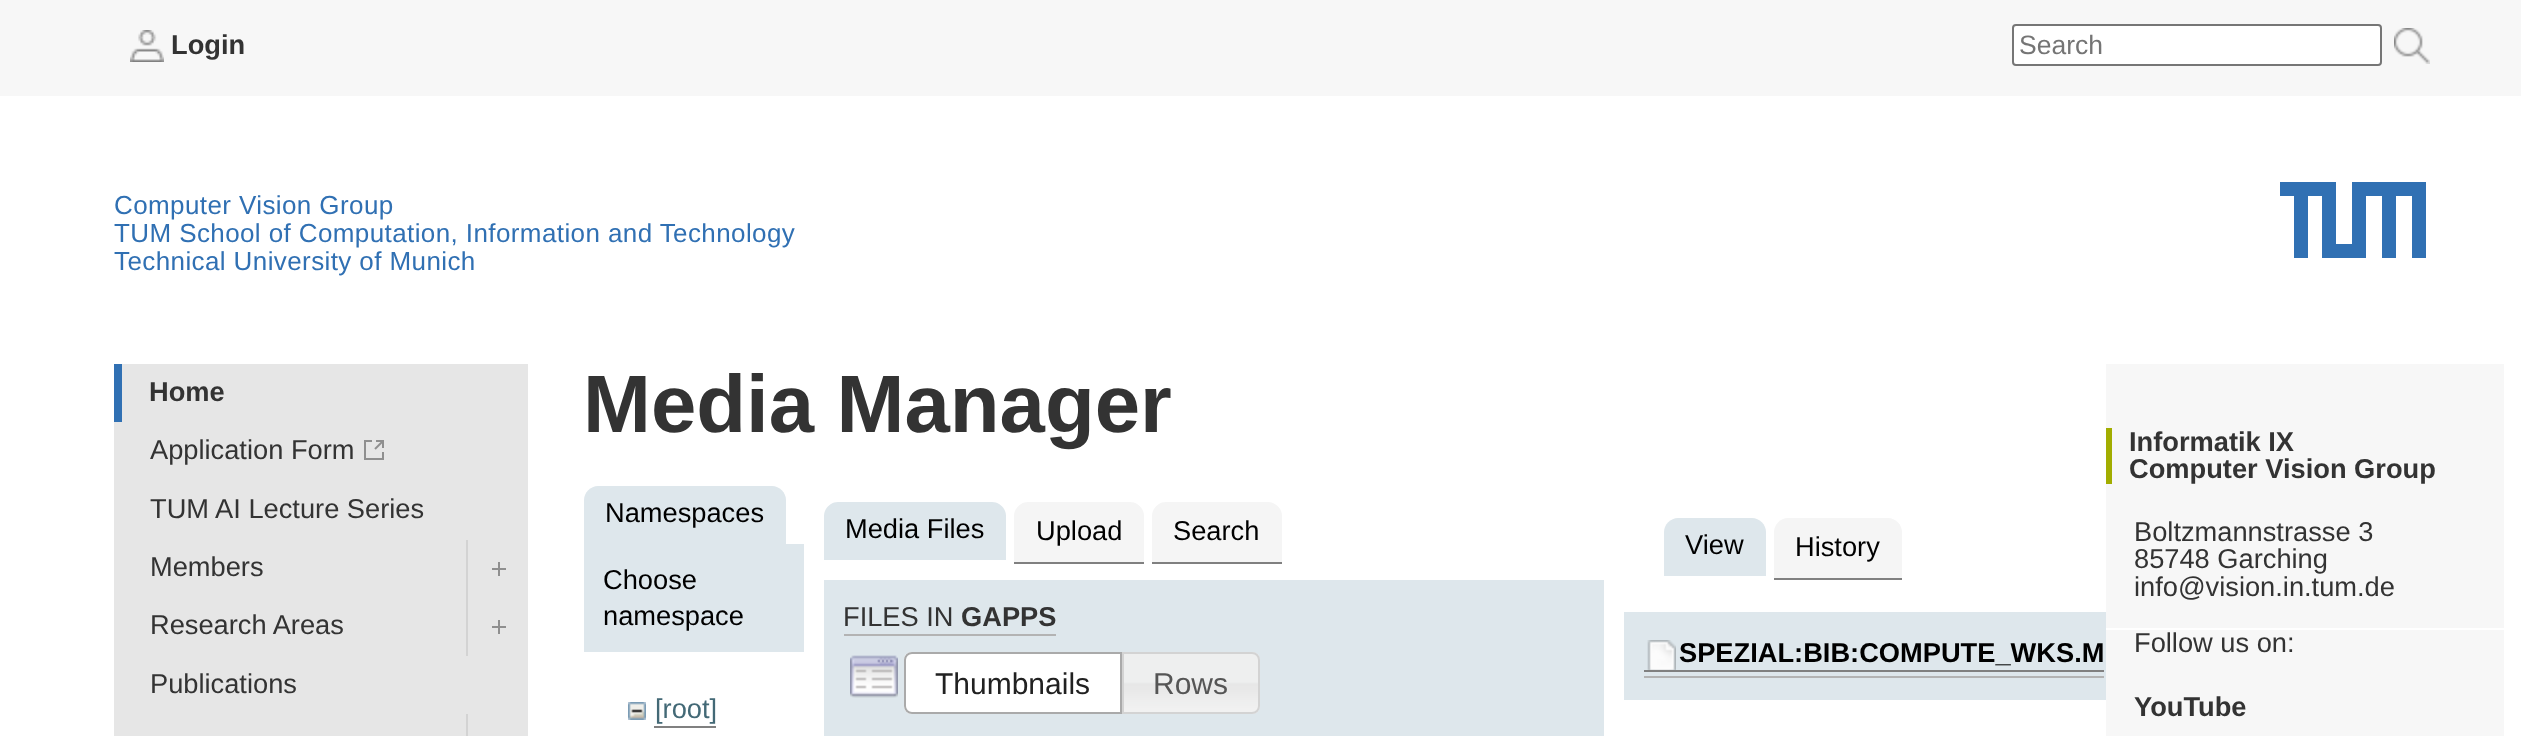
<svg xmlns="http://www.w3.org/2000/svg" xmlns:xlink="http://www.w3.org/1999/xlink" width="2521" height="736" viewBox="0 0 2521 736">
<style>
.cls-1{font:bold 27.25px Liberation Sans;fill:#333333}
.cls-2{font:26.5px Liberation Sans;fill:#757575}
.cls-3{font:26px Liberation Sans;letter-spacing:0.4px;fill:#3070b3}
.cls-4{font:27.25px Liberation Sans;fill:#333333}
.cls-5{font:bold 81.5px Liberation Sans;fill:#333333}
.cls-6{font:27.25px Liberation Sans;fill:#000000}
.cls-7{font:27.25px Liberation Sans;fill:#436976}
.cls-8{font:30px Liberation Sans;fill:#212121}
.cls-9{font:30px Liberation Sans;fill:#555555}
.cls-10{font:bold 27.25px Liberation Sans;fill:#000000}
</style>
<rect width="100%" height="100%" fill="#ffffff"/>
<rect fill="#f7f7f7" x="0" y="0" width="2521" height="96"/>
<image xlink:href="image0.png" x="130" y="30" width="34" height="32"/>
<rect fill="#ffffff" stroke="#767676" stroke-width="2" x="2013" y="25" width="368" height="40" rx="3"/>
<image xlink:href="image1.png" x="2394" y="28" width="36" height="36"/>
<image xlink:href="image2.png" x="2280" y="182" width="146" height="76"/>
<rect fill="#e6e6e6" x="122" y="364" width="406" height="58"/>
<rect fill="#3070b3" x="114" y="364" width="8" height="58"/>
<rect fill="#e6e6e6" x="114" y="422" width="414" height="314"/>
<image xlink:href="image3.png" x="364" y="440" width="20" height="20"/>
<image xlink:href="image4.png" x="492" y="562" width="14" height="14"/>
<rect fill="#d3d3d3" x="466" y="540" width="2" height="116"/>
<image xlink:href="image4.png" x="492" y="620" width="14" height="14"/>
<rect fill="#d3d3d3" x="466" y="714" width="2" height="22"/>
<path fill="#dee7ec" d="M598 486H772C779.5 486 786 492.5 786 500V544H584V500C584 492.5 590.5 486 598 486Z"/>
<rect fill="#dee7ec" x="584" y="544" width="220" height="108"/>
<image xlink:href="image5.png" x="628" y="702" width="18" height="18"/>
<rect fill="#808080" x="654" y="726" width="62" height="2"/>
<path fill="#dee7ec" d="M838 502H992C999.5 502 1006 508.5 1006 516V560H824V516C824 508.5 830.5 502 838 502Z"/>
<path fill="#f5f5f5" d="M1028 502H1130C1137.5 502 1144 508.5 1144 516V564H1014V516C1014 508.5 1020.5 502 1028 502Z"/>
<rect fill="#808080" x="1014" y="562" width="130" height="2"/>
<path fill="#f5f5f5" d="M1166 502H1268C1275.5 502 1282 508.5 1282 516V564H1152V516C1152 508.5 1158.5 502 1166 502Z"/>
<rect fill="#808080" x="1152" y="562" width="130" height="2"/>
<rect fill="#dee7ec" x="824" y="580" width="780" height="156"/>
<rect fill="#b3b3b3" x="844" y="634" width="212" height="2"/>
<image xlink:href="image6.png" x="850" y="655" width="48" height="43"/>
<path fill="#ffffff" d="M912 652H1122V714H912C907.5 714 904 710.5 904 706V660C904 655.5 907.5 652 912 652Z"/>
<image xlink:href="image7.png" x="904" y="652" width="7" height="62"/>
<path fill="none" stroke="#aaaaaa" stroke-width="2" d="M912 653H1121V713H912C908 713 905 710 905 706V660C905 656 908 653 912 653Z"/>
<image xlink:href="image8.png" x="1124" y="652" width="136" height="62"/>
<path fill="none" stroke="#d3d3d3" stroke-width="2" d="M1123 653H1252C1256 653 1259 656 1259 660V706C1259 710 1256 713 1252 713H1123Z"/>
<path fill="#dee7ec" d="M1678 518H1752C1759.5 518 1766 524.5 1766 532V576H1664V532C1664 524.5 1670.5 518 1678 518Z"/>
<path fill="#f5f5f5" d="M1788 518H1888C1895.5 518 1902 524.5 1902 532V580H1774V532C1774 524.5 1780.5 518 1788 518Z"/>
<rect fill="#808080" x="1774" y="578" width="128" height="2"/>
<rect fill="#dee7ec" x="1624" y="612" width="482" height="88"/>
<rect fill="#b3b3b3" x="1644" y="676" width="460" height="2"/>
<image xlink:href="image9.png" x="1647" y="640" width="29" height="30"/>
<rect fill="#808080" x="1644" y="670" width="460" height="2"/>
<rect fill="#f7f7f7" x="2106" y="364" width="398" height="372"/>
<rect fill="#a2ad00" x="2106" y="428" width="6" height="56"/>
<rect fill="#ffffff" x="2106" y="628" width="398" height="2"/>
<text class="cls-1" x="171" y="54">Login</text>
<text class="cls-2" x="2019" y="54">Search</text>
<text class="cls-3"><tspan x="114" y="214">Computer Vision Group</tspan><tspan x="114" y="242">TUM School of Computation, Information and Technology</tspan><tspan x="114" y="270">Technical University of Munich</tspan></text>
<text class="cls-1" x="149" y="401">Home</text>
<text class="cls-4" x="150" y="459">Application Form</text>
<text class="cls-4" x="150" y="518">TUM AI Lecture Series</text>
<text class="cls-4" x="150" y="576">Members</text>
<text class="cls-4" x="150" y="634">Research Areas</text>
<text class="cls-4" x="150" y="693">Publications</text>
<text class="cls-5" x="583" y="432">Media Manager</text>
<text class="cls-6" x="605" y="522">Namespaces</text>
<text class="cls-6"><tspan x="603" y="589">Choose</tspan><tspan x="603" y="625">namespace</tspan></text>
<text class="cls-7" x="655" y="718">[root]</text>
<text class="cls-6" x="845" y="538">Media Files</text>
<text class="cls-6" x="1036" y="540">Upload</text>
<text class="cls-6" x="1173" y="540">Search</text>
<text class="cls-4" x="843" y="626">FILES IN</text>
<text class="cls-1" x="961" y="626">GAPPS</text>
<text class="cls-8" x="935" y="694">Thumbnails</text>
<text class="cls-9" x="1153" y="694">Rows</text>
<text class="cls-6" x="1685" y="554">View</text>
<text class="cls-6" x="1795" y="556">History</text>
<text class="cls-10" x="1679" y="662">SPEZIAL:BIB:COMPUTE_WKS.M</text>
<text class="cls-1"><tspan x="2129" y="451">Informatik IX</tspan><tspan x="2129" y="478">Computer Vision Group</tspan></text>
<text class="cls-4"><tspan x="2134" y="541">Boltzmannstrasse 3</tspan><tspan x="2134" y="568">85748 Garching</tspan><tspan x="2134" y="596">info@vision.in.tum.de</tspan></text>
<text class="cls-4" x="2134" y="652">Follow us on:</text>
<text class="cls-1" x="2134" y="716">YouTube</text>
</svg>
